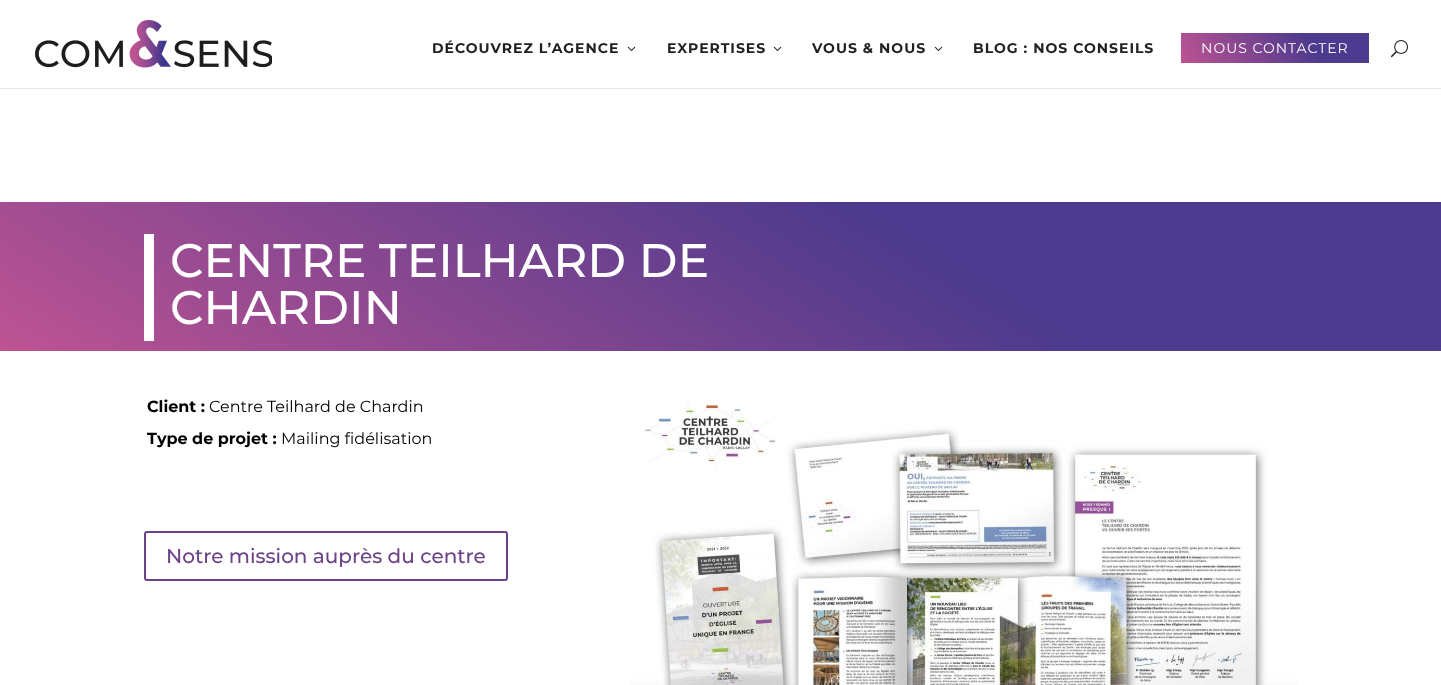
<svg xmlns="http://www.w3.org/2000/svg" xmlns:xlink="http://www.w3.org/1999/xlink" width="1441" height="685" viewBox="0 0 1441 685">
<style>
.cls-1{font:bold 14px Montserrat;letter-spacing:1px;fill:#212121}
.cls-2{font:14px Montserrat;letter-spacing:1px;fill:#ffffff}
.cls-3{font:500 47px Montserrat;fill:#ffffff}
.cls-4{font:bold 16px Montserrat;fill:#000000}
.cls-5{font:16px Montserrat;fill:#000000}
.cls-6{font:500 20px Montserrat;fill:#6c4389}
</style>
<defs>
<linearGradient id="g1" gradientUnits="userSpaceOnUse" x1="1199" y1="93" x2="1351" y2="2.5"><stop offset="0" stop-color="#be5393"/><stop offset="0.7" stop-color="#4b3a8d"/></linearGradient>
<linearGradient id="g2" gradientUnits="userSpaceOnUse" x1="485" y1="654" x2="956" y2="-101"><stop offset="0" stop-color="#be5393"/><stop offset="0.65" stop-color="#4b3a8d"/></linearGradient>
</defs>
<rect width="100%" height="100%" fill="#ffffff"/>
<rect fill="#e6e6e6" x="0" y="88" width="1441" height="1"/>
<image xlink:href="image0.png" x="35" y="20" width="237" height="48"/>
<image xlink:href="image1.png" x="627" y="46" width="9" height="5"/>
<image xlink:href="image1.png" x="773" y="46" width="9" height="5"/>
<image xlink:href="image1.png" x="934" y="46" width="9" height="5"/>
<rect fill="url(#g1)" x="1181" y="33" width="188" height="30"/>
<image xlink:href="image2.png" x="1391" y="40" width="17" height="18"/>
<rect fill="url(#g2)" x="0" y="202" width="1441" height="149"/>
<rect fill="#ffffff" x="144" y="234" width="10" height="107"/>
<rect fill="none" stroke="#6c4389" stroke-width="2" x="145" y="532" width="362" height="48" rx="2"/>
<image xlink:href="image3.png" x="631" y="399" width="666" height="286"/>
<text class="cls-1" x="432" y="53">DÉCOUVREZ L’AGENCE</text>
<text class="cls-1" x="667" y="53">EXPERTISES</text>
<text class="cls-1" x="812" y="53">VOUS &amp; NOUS</text>
<text class="cls-1" x="973" y="53">BLOG : NOS CONSEILS</text>
<text class="cls-2" x="1201" y="53">NOUS CONTACTER</text>
<text class="cls-3"><tspan x="170" y="277">CENTRE TEILHARD DE</tspan><tspan x="170" y="324">CHARDIN</tspan></text>
<text class="cls-4" x="147" y="412">Client :</text>
<text class="cls-5" x="209" y="412">Centre Teilhard de Chardin</text>
<text class="cls-4" x="147" y="444">Type de projet :</text>
<text class="cls-5" x="281" y="444">Mailing fidélisation</text>
<text class="cls-6" x="166" y="563">Notre mission auprès du centre</text>
</svg>
